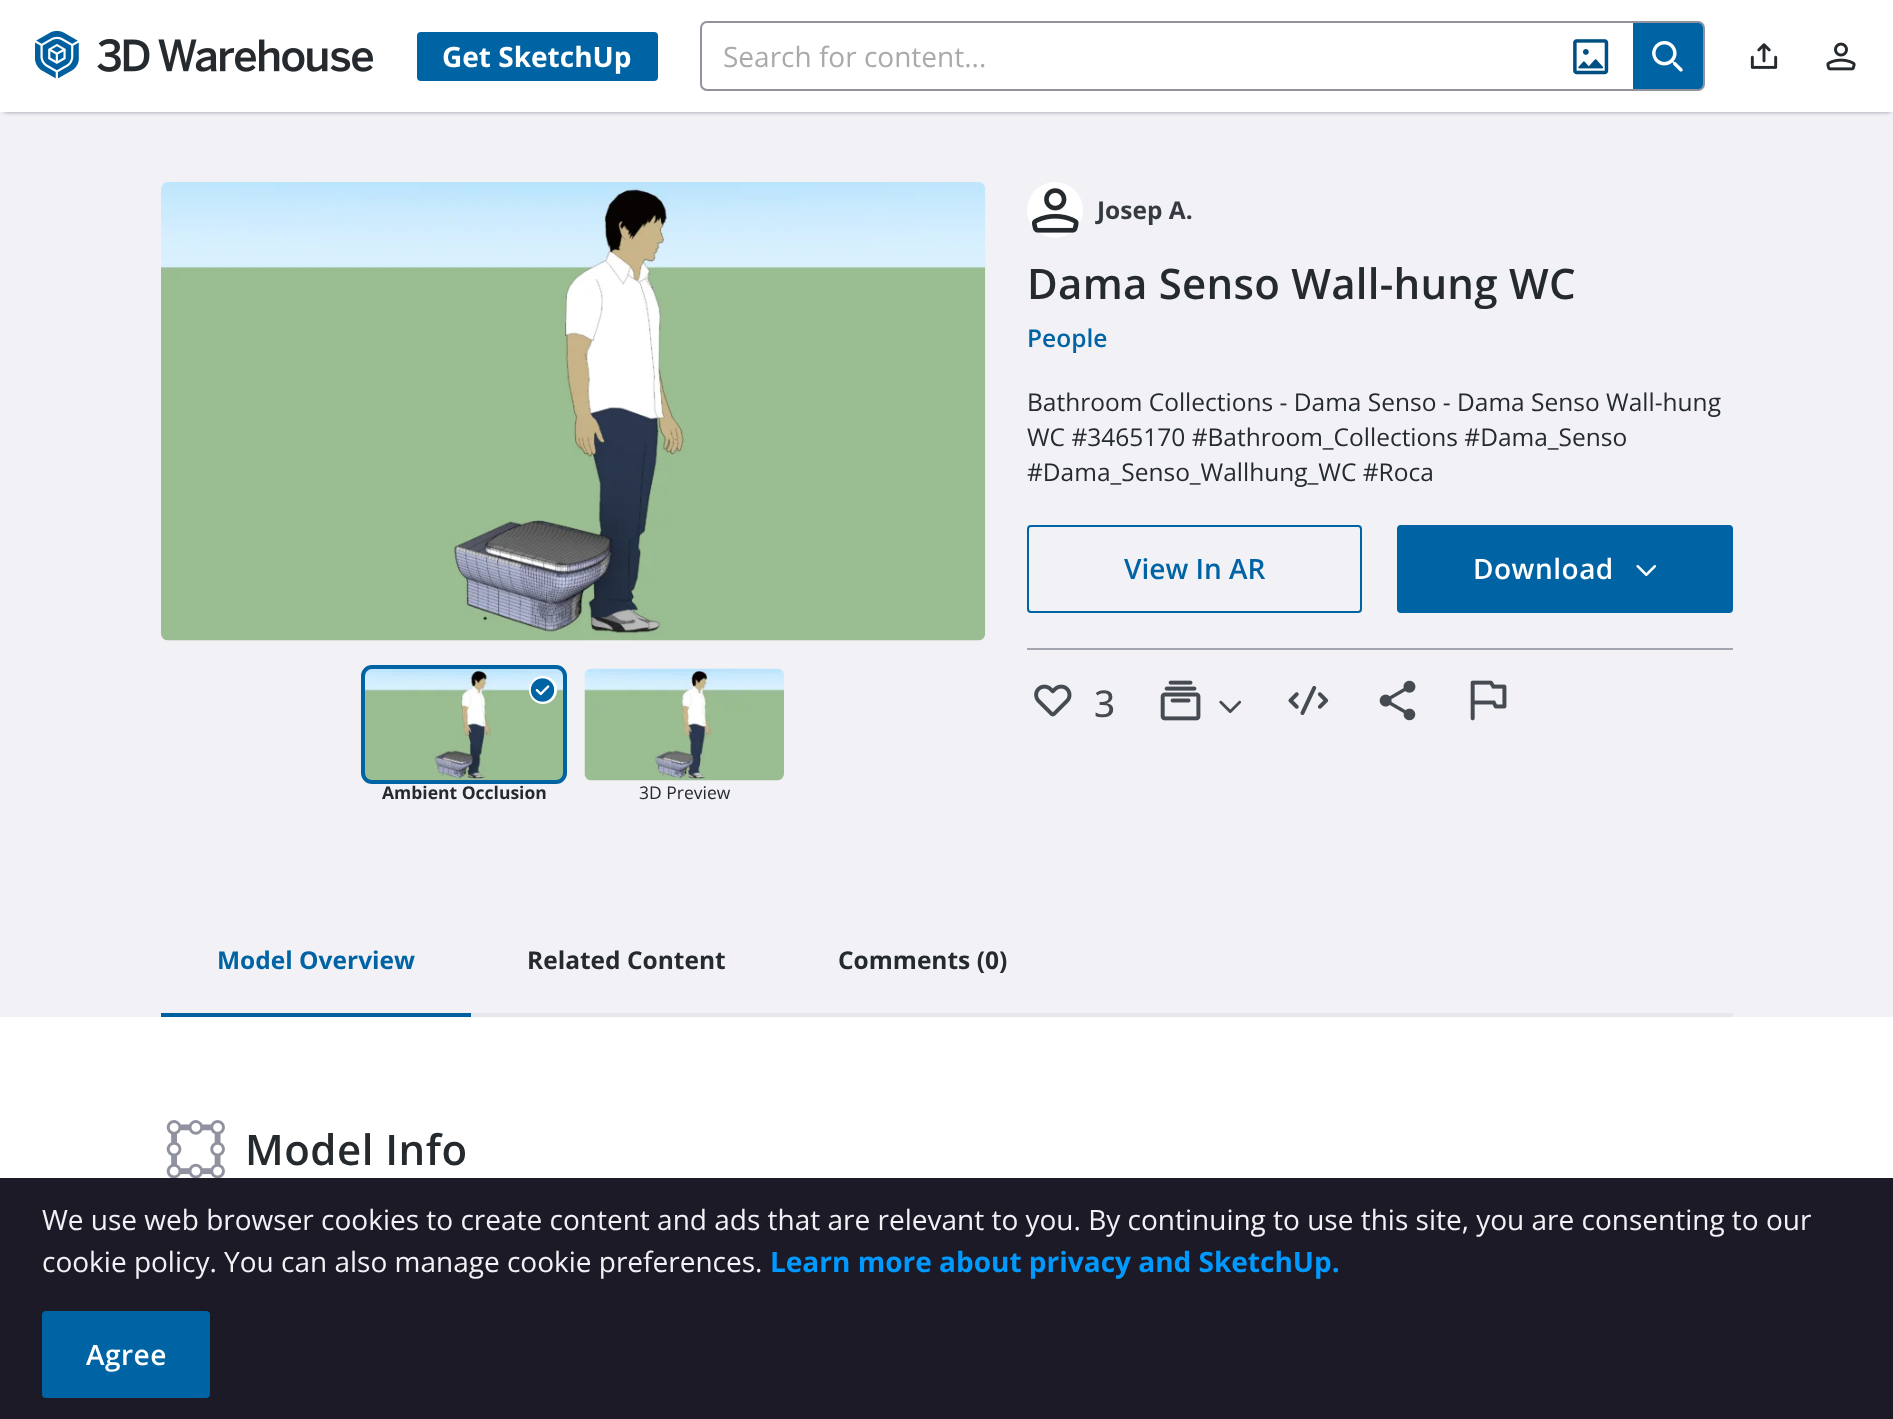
<svg xmlns="http://www.w3.org/2000/svg" xmlns:xlink="http://www.w3.org/1999/xlink" width="1893" height="1419" viewBox="0 0 1893 1419">
<style>
.cls-1{font:bold 28px Open Sans;fill:#ffffff}
.cls-2{font:28px Open Sans;fill:#a8aaab}
.cls-3{font:bold 24.5px Open Sans;fill:#353a40}
.cls-4{font:600 42px Open Sans;letter-spacing:0.25px;fill:#252a2e}
.cls-5{font:600 24.5px Open Sans;fill:#0063a3}
.cls-6{font:24.5px Open Sans;fill:#252a2e}
.cls-7{font:600 28px Open Sans;fill:#0063a3}
.cls-8{font:600 28px Open Sans;letter-spacing:0.5px;fill:#ffffff}
.cls-9{font:500 37px Open Sans;fill:#464b52}
.cls-10{font:bold 17.5px Open Sans;fill:#252a2e}
.cls-11{font:17.5px Open Sans;fill:#252a2e}
.cls-12{font:bold 24.5px Open Sans;fill:#0063a3}
.cls-13{font:bold 24.5px Open Sans;fill:#252a2e}
.cls-14{font:600 42px Open Sans;letter-spacing:0.5px;fill:#252a2e}
.cls-15{font:28px Open Sans;fill:#f1f1f6}
.cls-16{font:bold 28px Open Sans;fill:#0099fe}
</style>
<rect width="100%" height="100%" fill="#f1f1f6"/>
<rect fill="#90939f" filter="blur(2px)" x="4" y="7" width="1886" height="105"/>
<rect fill="#ffffff" x="0" y="0" width="1893" height="112"/>
<image xlink:href="image0.png" x="35" y="30" width="44" height="49"/>
<image xlink:href="image1.png" x="97" y="39" width="276" height="33"/>
<rect fill="#0063a3" x="417" y="32" width="241" height="49" rx="4"/>
<rect fill="none" stroke="#90939f" stroke-width="2" x="701" y="22" width="1003" height="68" rx="6"/>
<image xlink:href="image2.png" x="1573" y="39" width="36" height="36"/>
<path fill="#0063a3" d="M1633 23H1698C1701 23 1703 25 1703 28V84C1703 87 1701 89 1698 89H1633Z"/>
<image xlink:href="image3.png" x="1652" y="41" width="31" height="31"/>
<image xlink:href="image4.png" x="1750" y="43" width="28" height="26"/>
<image xlink:href="image5.png" x="1826" y="42" width="30" height="29"/>
<circle fill="#ffffff" cx="1055" cy="210" r="28"/>
<image xlink:href="image6.png" x="1031" y="188" width="48" height="45"/>
<rect fill="none" stroke="#0063a3" stroke-width="2" x="1028" y="526" width="333" height="86" rx="3"/>
<rect fill="#0063a3" stroke="#0063a3" stroke-width="2" x="1398" y="526" width="334" height="86" rx="3"/>
<image xlink:href="image7.png" x="1636" y="565" width="21" height="12"/>
<rect fill="#a3a6b1" x="1027" y="648" width="706" height="2"/>
<image xlink:href="image8.png" x="1034" y="684" width="38" height="33"/>
<image xlink:href="image9.png" x="1160" y="680" width="41" height="41"/>
<image xlink:href="image10.png" x="1219" y="700" width="23" height="13"/>
<image xlink:href="image11.png" x="1288" y="685" width="41" height="30"/>
<image xlink:href="image12.png" x="1379" y="680" width="37" height="41"/>
<image xlink:href="image13.png" x="1470" y="680" width="37" height="41"/>
<image xlink:href="image14.png" x="161" y="182" width="825" height="459"/>
<image xlink:href="image15.png" x="365" y="669" width="198" height="111"/>
<rect fill="none" stroke="#0063a3" stroke-width="4" x="363" y="667" width="202" height="115" rx="9"/>
<circle fill="#ffffff" cx="543" cy="690" r="14"/>
<image xlink:href="image16.png" x="530" y="678" width="25" height="24"/>
<image xlink:href="image17.png" x="584" y="668" width="200" height="113"/>
<rect fill="#e5e7eb" x="1062" y="1013" width="671" height="4"/>
<rect fill="#005f9e" x="161" y="1013" width="310" height="4"/>
<rect fill="#e5e7eb" x="471" y="1013" width="591" height="4"/>
<rect fill="#ffffff" x="0" y="1017" width="1893" height="161"/>
<image xlink:href="image18.png" x="166" y="1120" width="59" height="58"/>
<rect fill="#1b1a26" x="0" y="1178" width="1893" height="241"/>
<rect fill="#0063a3" stroke="#0063a3" stroke-width="2" x="43" y="1312" width="166" height="85" rx="3"/>
<text class="cls-1" x="442" y="67">Get SketchUp</text>
<text class="cls-2" x="723" y="67">Search for content...</text>
<text class="cls-3" x="1097" y="219">Josep A.</text>
<text class="cls-4" x="1027" y="299">Dama Senso Wall-hung WC</text>
<text class="cls-5" x="1027" y="347">People</text>
<text class="cls-6"><tspan x="1027" y="411">Bathroom Collections - Dama Senso - Dama Senso Wall-hung</tspan><tspan x="1027" y="446">WC #3465170 #Bathroom_Collections #Dama_Senso</tspan><tspan x="1027" y="481">#Dama_Senso_Wallhung_WC #Roca</tspan></text>
<text class="cls-7" x="1124" y="579">View In AR</text>
<text class="cls-8" x="1473" y="579">Download</text>
<text class="cls-9" x="1094" y="717">3</text>
<text class="cls-10" x="382" y="799">Ambient Occlusion</text>
<text class="cls-11" x="639" y="799">3D Preview</text>
<text class="cls-12" x="217" y="969">Model Overview</text>
<text class="cls-13" x="527" y="969">Related Content</text>
<text class="cls-13" x="838" y="969">Comments (0)</text>
<text class="cls-14" x="245" y="1165">Model Info</text>
<text class="cls-15"><tspan x="42" y="1230">We use web browser cookies to create content and ads that are relevant to you. By continuing to use this site, you are consenting to our</tspan><tspan x="42" y="1272">cookie policy. You can also manage cookie preferences.</tspan></text>
<text class="cls-16" x="770" y="1272">Learn more about privacy and SketchUp.</text>
<text class="cls-8" x="86" y="1365">Agree</text>
</svg>
